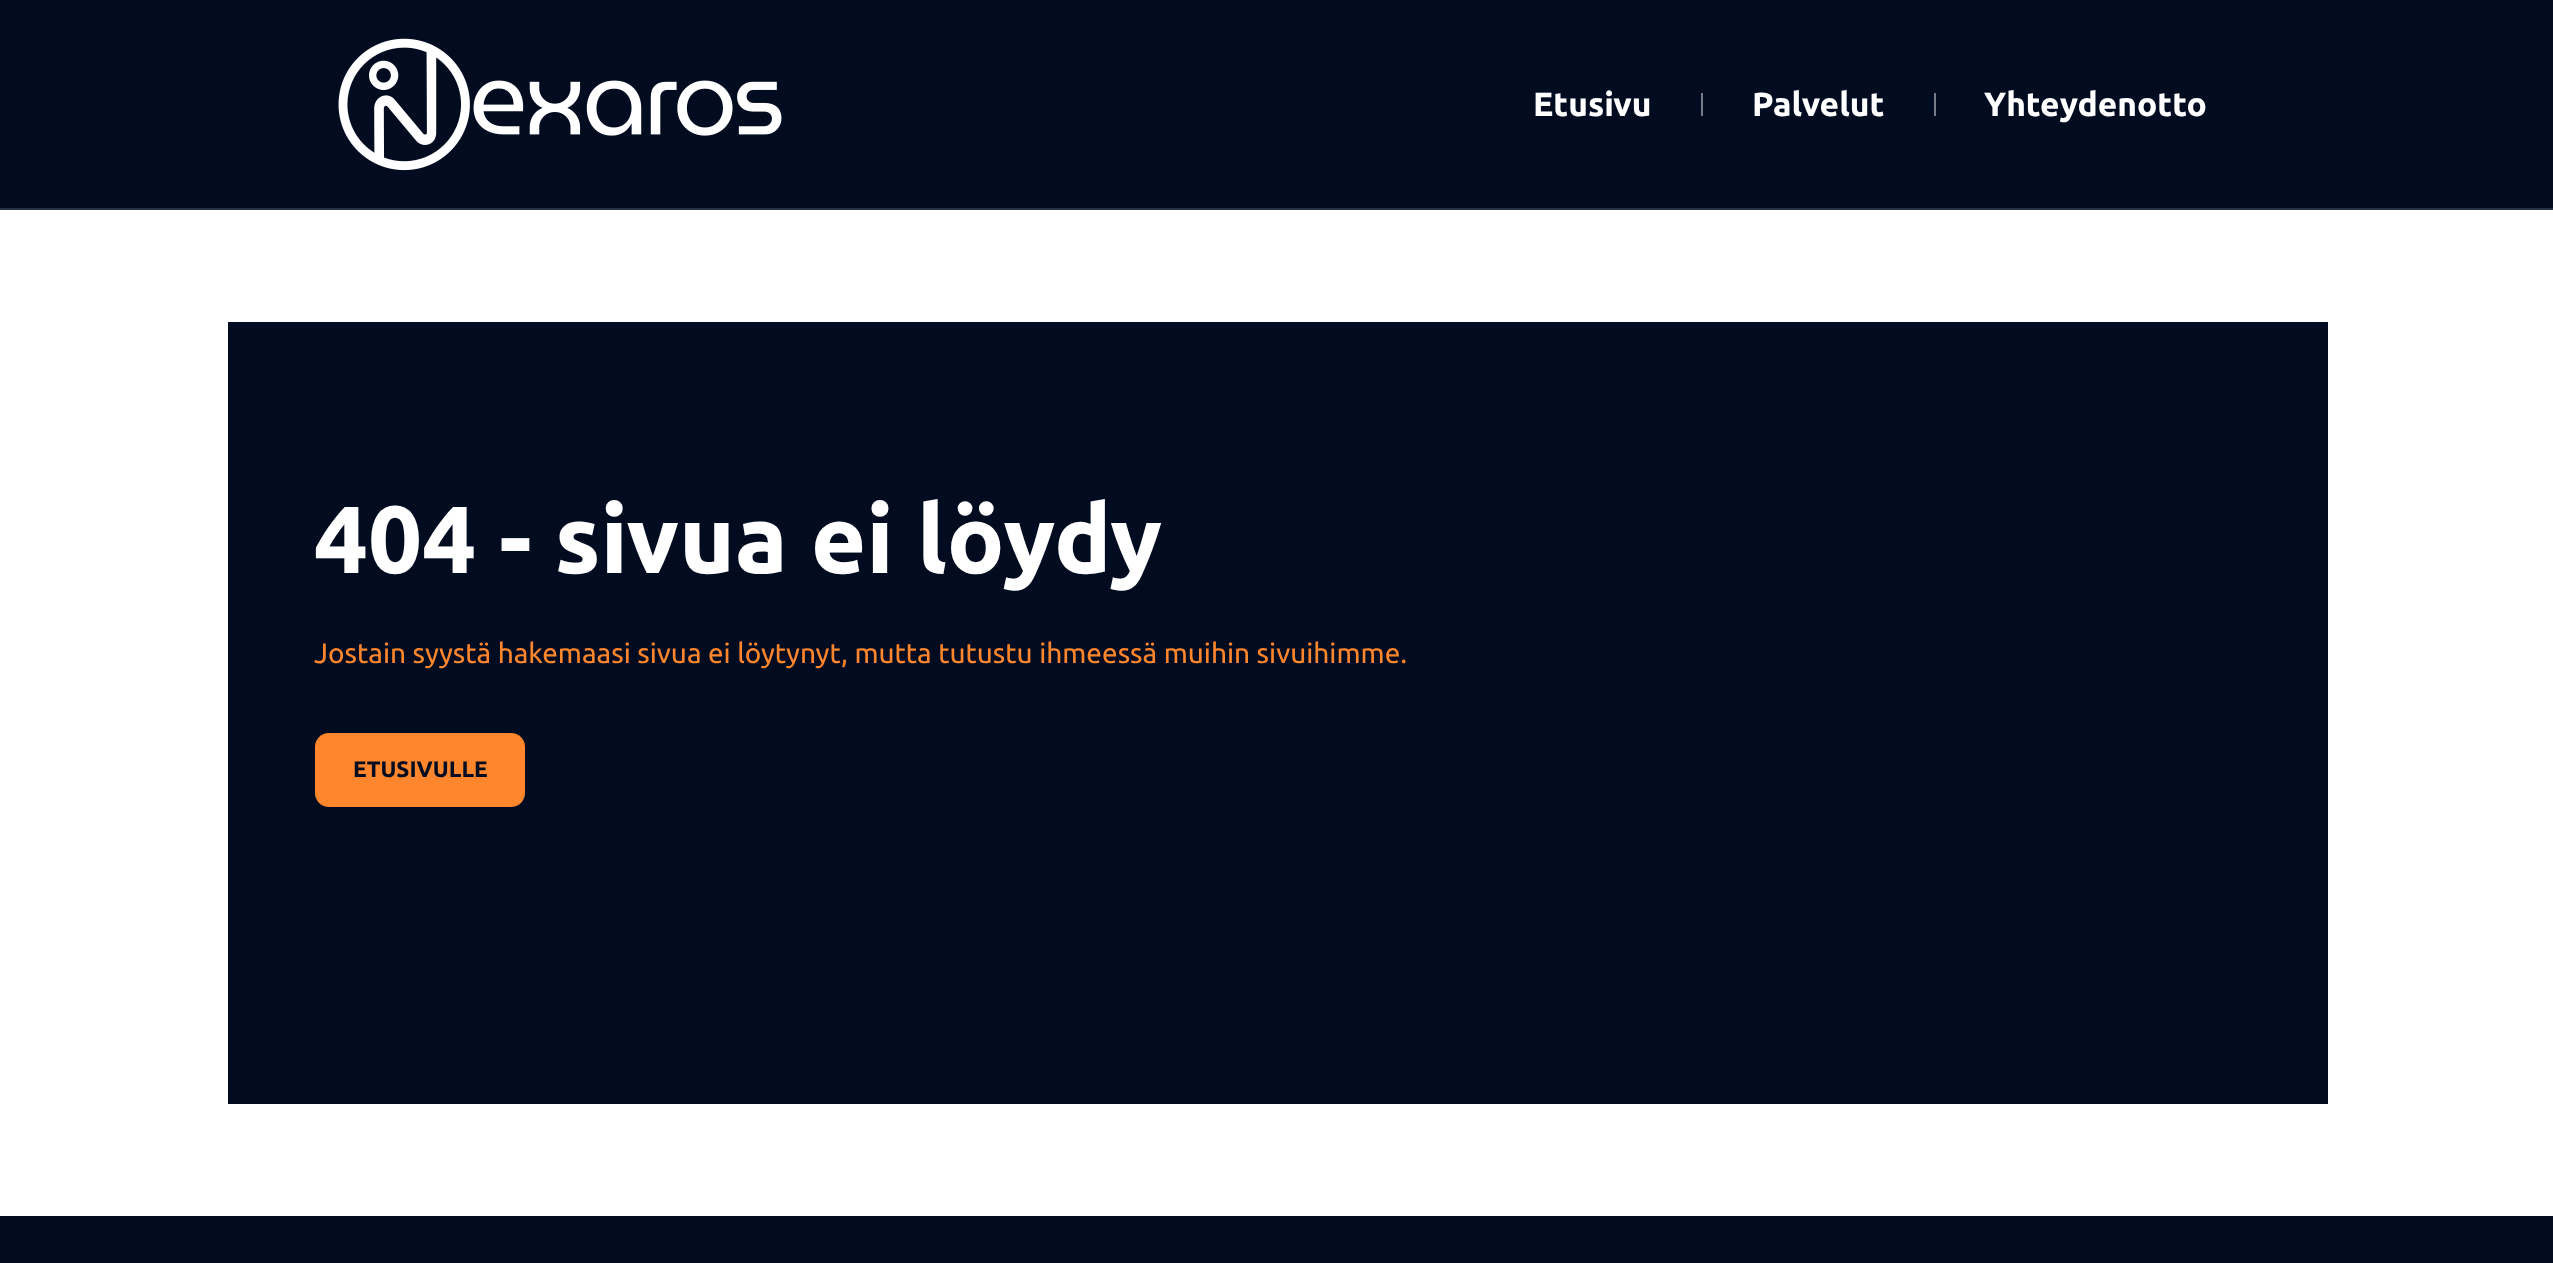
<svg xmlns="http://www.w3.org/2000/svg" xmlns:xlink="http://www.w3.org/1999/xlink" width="2553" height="1263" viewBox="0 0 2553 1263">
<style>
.cls-1{font:bold 33.5px Ubuntu;fill:#ffffff}
.cls-2{font:bold 95.25px Ubuntu;fill:#ffffff}
.cls-3{font:28px Ubuntu;fill:#ff862c}
.cls-4{font:bold 22.5px Ubuntu;fill:#020c21}
</style>
<rect width="100%" height="100%" fill="#ffffff"/>
<rect fill="#020c21" x="0" y="0" width="2553" height="208"/>
<rect fill="#283042" x="0" y="208" width="2553" height="2"/>
<image xlink:href="image0.png" x="338" y="38" width="444" height="133"/>
<rect fill="#767c87" x="1701" y="93" width="2" height="23"/>
<rect fill="#767c87" x="1934" y="93" width="2" height="23"/>
<rect fill="#020c21" x="228" y="322" width="2100" height="782"/>
<rect fill="#ff862c" x="315" y="733" width="210" height="74" rx="14"/>
<rect fill="#020c21" x="0" y="1216" width="2553" height="47"/>
<text class="cls-1" x="1533" y="116">Etusivu</text>
<text class="cls-1" x="1752" y="116">Palvelut</text>
<text class="cls-1" x="1984" y="116">Yhteydenotto</text>
<text class="cls-2" x="314" y="573">404 - sivua ei löydy</text>
<text class="cls-3" x="314" y="663">Jostain syystä hakemaasi sivua ei löytynyt, mutta tutustu ihmeessä muihin sivuihimme.</text>
<text class="cls-4" x="353" y="777">ETUSIVULLE</text>
</svg>
